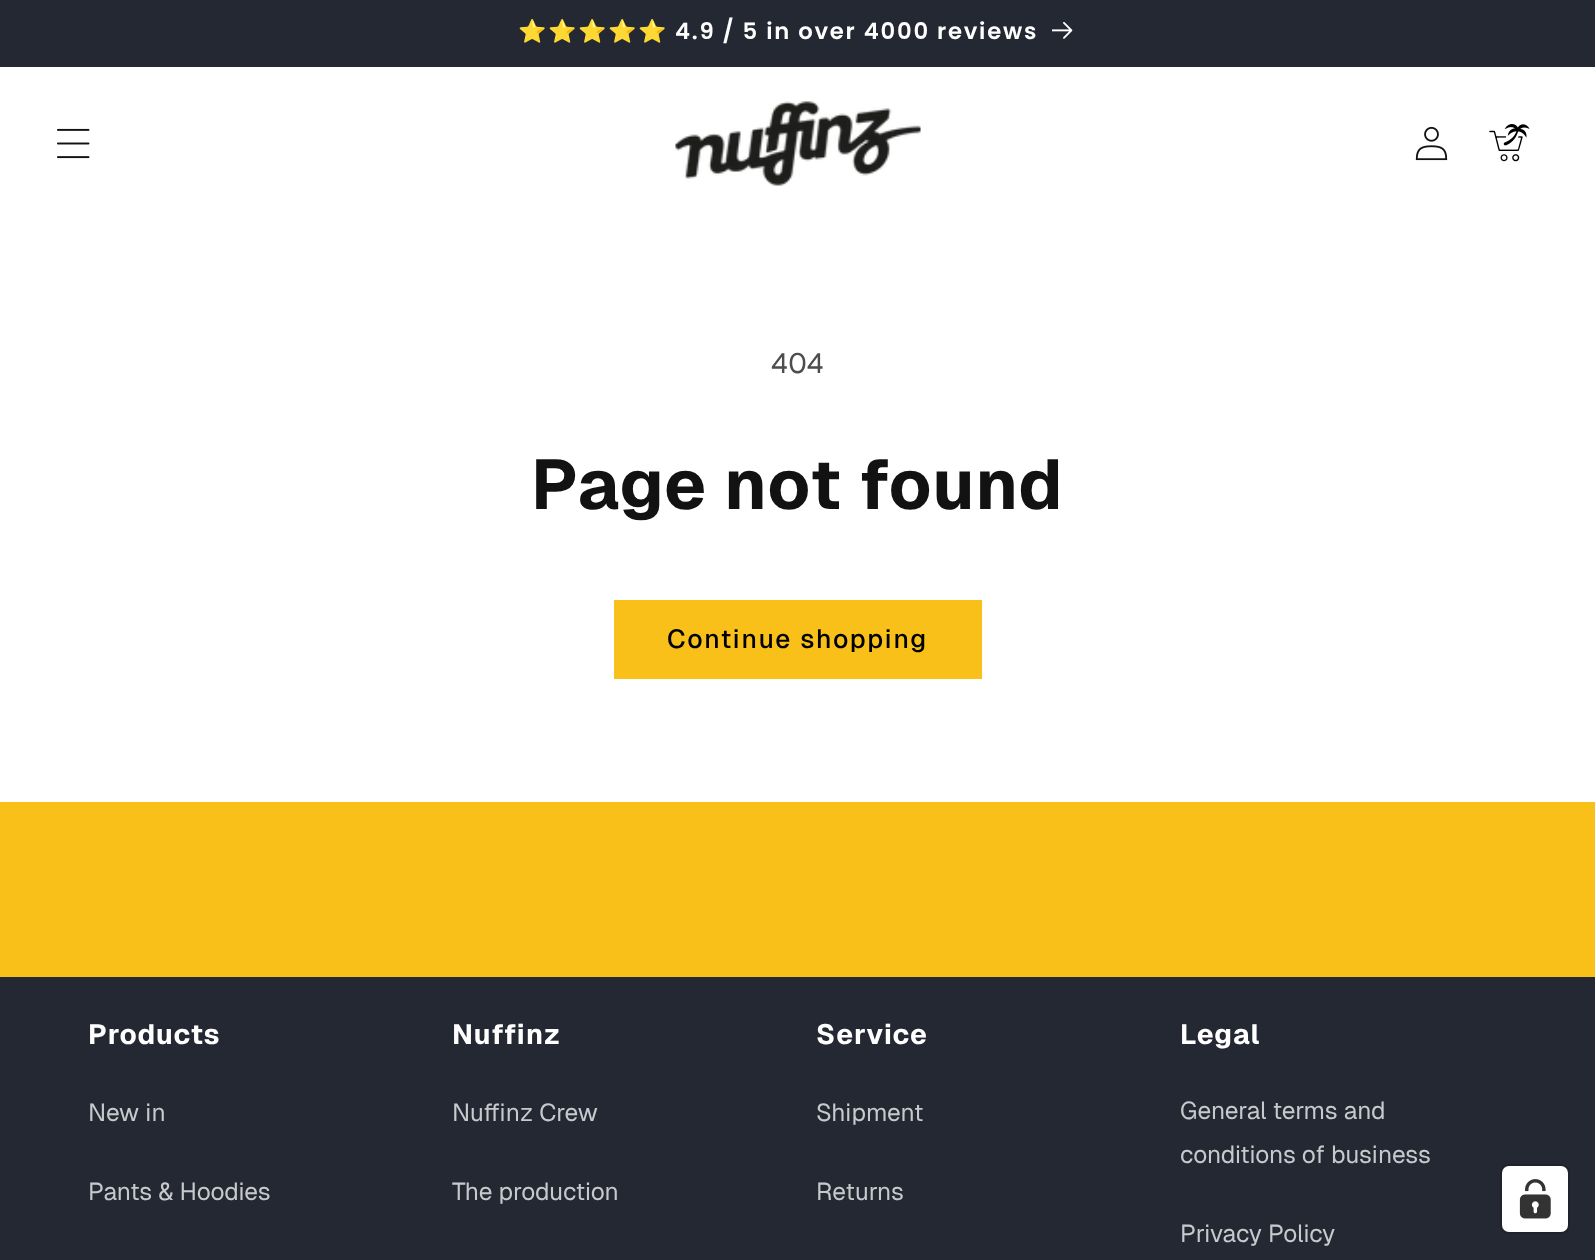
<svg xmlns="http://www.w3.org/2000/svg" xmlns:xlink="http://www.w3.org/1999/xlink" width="1595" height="1260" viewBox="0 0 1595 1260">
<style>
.cls-1{font:bold 22.75px Noto Color Emoji;letter-spacing:1.75px;fill:#ffffff}
.cls-2{font:600 22.75px Poppins;letter-spacing:1.75px;fill:#ffffff}
.cls-3{font:28px Geist;fill:#4d4d4d}
.cls-4{font:bold 70px Geist;letter-spacing:1px;fill:#121212}
.cls-5{font:500 26.25px Geist;letter-spacing:1.75px;fill:#000000}
.cls-6{font:bold 28px Geist;letter-spacing:1px;fill:#ffffff}
.cls-7{font:24.5px Geist;fill:#c8c9cc}
</style>
<rect width="100%" height="100%" fill="#ffffff"/>
<rect fill="#242833" x="0" y="0" width="1595" height="67"/>
<image xlink:href="image0.png" x="1052" y="22" width="21" height="17"/>
<image xlink:href="image1.png" x="57" y="128" width="33" height="31"/>
<image xlink:href="image2.png" x="675" y="101" width="246" height="85"/>
<image xlink:href="image3.png" x="1415" y="126" width="33" height="35"/>
<image xlink:href="image4.png" x="1489" y="124" width="41" height="38"/>
<rect fill="#f8c018" x="614" y="600" width="368" height="79"/>
<rect fill="#f8c018" x="0" y="802" width="1595" height="175"/>
<rect fill="#242833" x="0" y="977" width="1595" height="283"/>
<rect fill="none" stroke="#1f222b" stroke-width="2" x="1501" y="1165" width="68" height="68" rx="8"/>
<rect fill="#ffffff" x="1502" y="1166" width="66" height="66" rx="7"/>
<image xlink:href="image5.png" x="1519" y="1179" width="32" height="40"/>
<text class="cls-1" x="518" y="39">⭐⭐⭐⭐⭐</text>
<text class="cls-2" x="675" y="39">4.9 / 5 in over 4000 reviews</text>
<text class="cls-3" x="771" y="373">404</text>
<text class="cls-4" x="531" y="509">Page not found</text>
<text class="cls-5" x="667" y="648">Continue shopping</text>
<text class="cls-6" x="88" y="1044">Products</text>
<text class="cls-7" x="88" y="1121">New in</text>
<text class="cls-7" x="88" y="1200">Pants &amp; Hoodies</text>
<text class="cls-6" x="452" y="1044">Nuffinz</text>
<text class="cls-7" x="452" y="1121">Nuffinz Crew</text>
<text class="cls-7" x="452" y="1200">The production</text>
<text class="cls-6" x="816" y="1044">Service</text>
<text class="cls-7" x="816" y="1121">Shipment</text>
<text class="cls-7" x="816" y="1200">Returns</text>
<text class="cls-6" x="1180" y="1044">Legal</text>
<text class="cls-7"><tspan x="1180" y="1119">General terms and</tspan><tspan x="1180" y="1163">conditions of business</tspan></text>
<text class="cls-7" x="1180" y="1242">Privacy Policy</text>
</svg>
